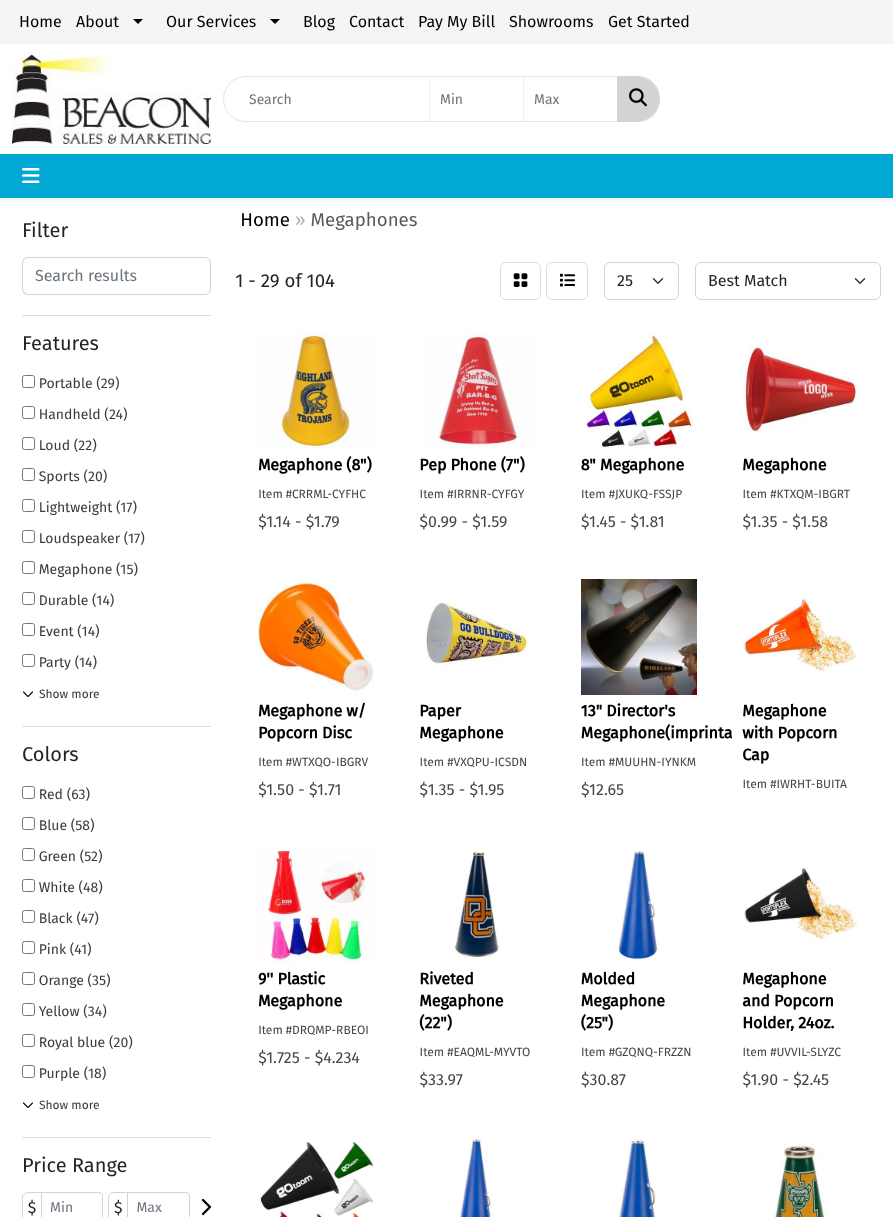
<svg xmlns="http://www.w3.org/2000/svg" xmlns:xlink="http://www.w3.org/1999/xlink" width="893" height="1217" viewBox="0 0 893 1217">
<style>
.cls-1{font:16px Fira Sans;fill:#000000}
.cls-2{font:14px Fira Sans;fill:#6c757d}
</style>
<rect width="100%" height="100%" fill="#ffffff"/>
<rect fill="#f5f5f5" x="0" y="0" width="893" height="44"/>
<path fill="#000000" d="M133 19H143L138 24Z"/>
<path fill="#000000" d="M270 19H280L275 24Z"/>
<image xlink:href="image0.png" x="12" y="54" width="199" height="90"/>
<path fill="none" stroke="#e4e4e4" d="M246 76.5H429.5V121.5H246C233.5 121.5 223.5 111.5 223.5 99C223.5 86.5 233.5 76.5 246 76.5Z"/>
<rect fill="#e4e4e4" x="429" y="76" width="189" height="1"/>
<rect fill="#e4e4e4" x="429" y="121" width="189" height="1"/>
<rect fill="#efefef" x="429" y="76" width="1" height="46"/>
<rect fill="#efefef" x="523" y="76" width="1" height="46"/>
<path fill="#d3d3d3" d="M617 77H637C649 77 659 87 659 99C659 111 649 121 637 121H617Z"/>
<path fill="#d3d3d3" fill-rule="evenodd" d="M617 76H637C650 76 660 86 660 99C660 112 650 122 637 122H617ZM617 77H637C649 77 659 87 659 99C659 111 649 121 637 121H617Z"/>
<image xlink:href="image1.png" x="629" y="88" width="18" height="19"/>
<rect fill="#000000" fill-opacity="0.07" filter="blur(2px)" x="0" y="156" width="893" height="44"/>
<rect fill="#01a8d4" x="0" y="154" width="893" height="44"/>
<image xlink:href="image2.png" x="22" y="168" width="18" height="15"/>
<image xlink:href="image3.png" x="22" y="212" width="859" height="1005"/>
<text class="cls-1" x="19" y="27">Home</text>
<text class="cls-1" x="76" y="27">About</text>
<text class="cls-1" x="166" y="27">Our Services</text>
<text class="cls-1" x="303" y="27">Blog</text>
<text class="cls-1" x="349" y="27">Contact</text>
<text class="cls-1" x="418" y="27">Pay My Bill</text>
<text class="cls-1" x="509" y="27">Showrooms</text>
<text class="cls-1" x="608" y="27">Get Started</text>
<text class="cls-2" x="249" y="104">Search</text>
<text class="cls-2" x="440" y="104">Min</text>
<text class="cls-2" x="534" y="104">Max</text>
</svg>
